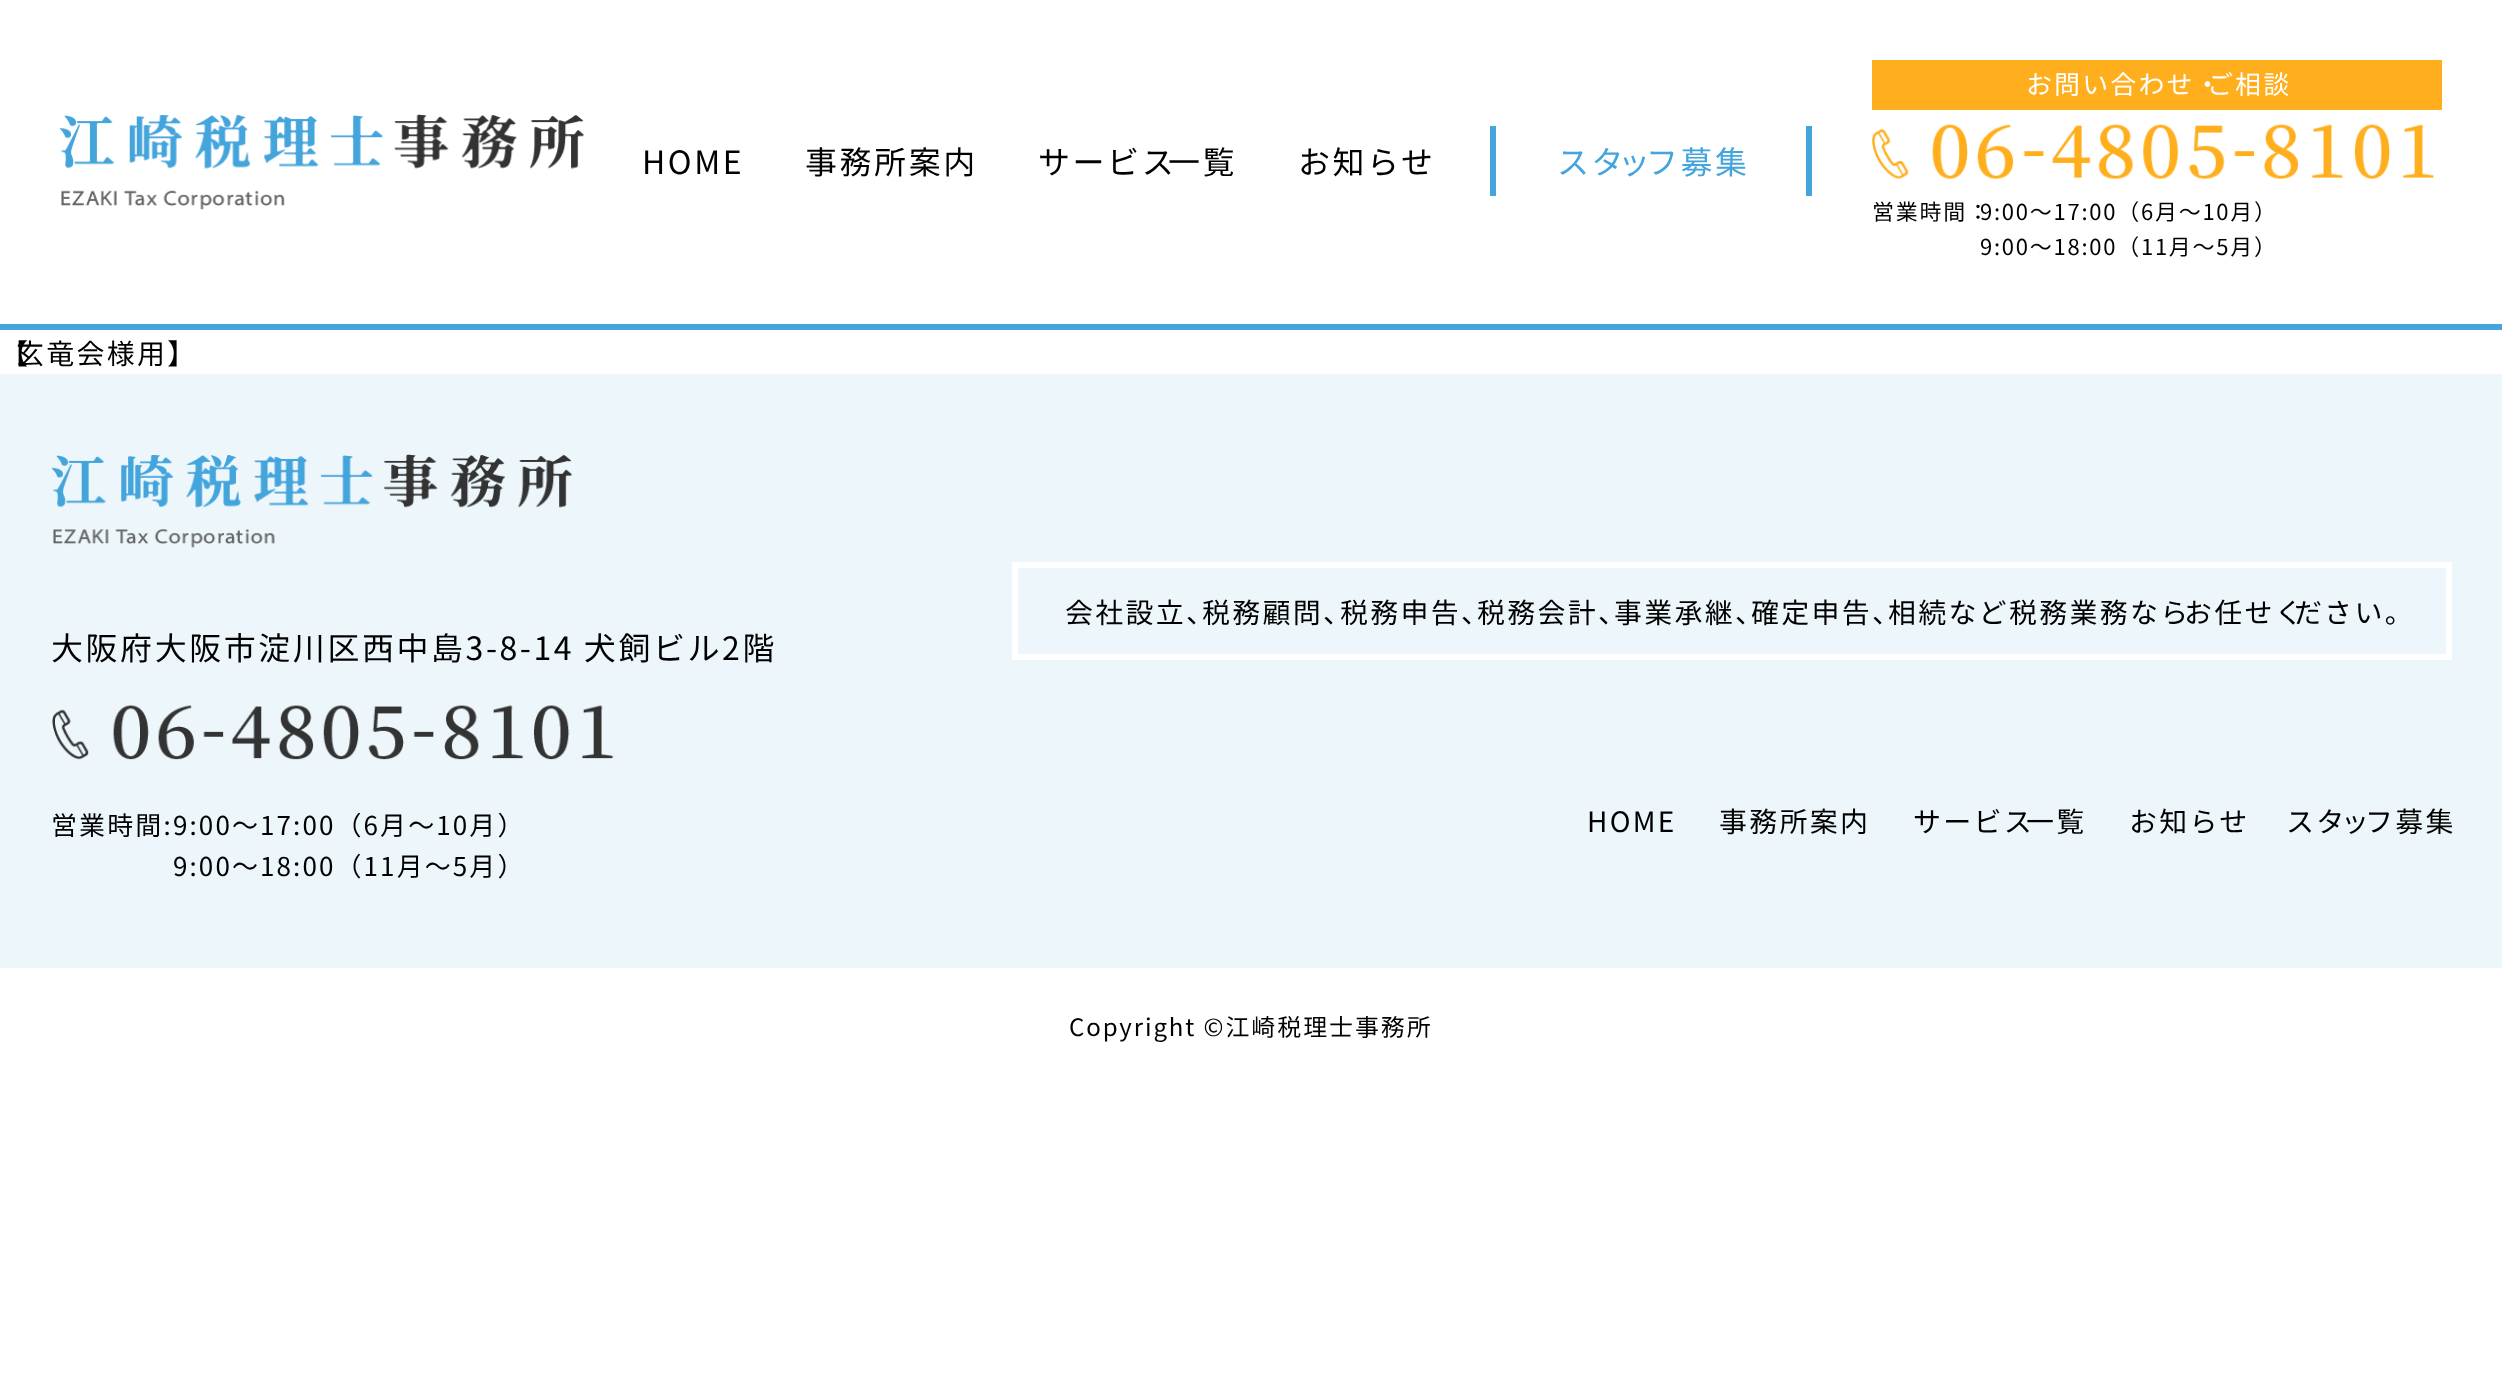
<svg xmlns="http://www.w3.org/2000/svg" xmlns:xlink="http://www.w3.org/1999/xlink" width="2502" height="1381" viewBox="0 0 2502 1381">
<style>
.cls-1{font:32px Noto Sans CJK JP;letter-spacing:2.55px;fill:#000000}
.cls-2{font:32px Noto Sans CJK JP;letter-spacing:2.55px;fill:#44a4dc}
.cls-3{font:26px Noto Sans CJK JP;letter-spacing:2.1px;fill:#ffffff}
.cls-4{font:22px Noto Sans CJK JP;letter-spacing:1.75px;fill:#000000}
.cls-5{font:22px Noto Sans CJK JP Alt;letter-spacing:1.75px;fill:#000000}
.cls-6{font:28px Noto Sans CJK JP;letter-spacing:2.25px;fill:#000000}
.cls-7{font:32px Noto Sans CJK JP Alt;letter-spacing:2.55px;fill:#000000}
.cls-8{font:26px Noto Sans CJK JP;letter-spacing:2.1px;fill:#000000}
.cls-9{font:26px Noto Sans CJK JP Alt;letter-spacing:2.1px;fill:#000000}
.cls-10{font:24px Noto Sans CJK JP;letter-spacing:1.9px;fill:#000000}
</style>
<rect width="100%" height="100%" fill="#ffffff"/>
<rect fill="#44a4dc" x="0" y="324" width="2502" height="6"/>
<image xlink:href="image0.png" x="60" y="114" width="524" height="96"/>
<rect fill="#44a4dc" x="1490" y="126" width="6" height="70"/>
<rect fill="#44a4dc" x="1806" y="126" width="6" height="70"/>
<rect fill="#ffaf1e" x="1872" y="60" width="570" height="50"/>
<image xlink:href="image1.png" x="1872" y="124" width="563" height="55"/>
<rect fill="#ecf6fb" x="0" y="374" width="2502" height="594"/>
<image xlink:href="image2.png" x="52" y="454" width="520" height="94"/>
<image xlink:href="image3.png" x="52" y="705" width="562" height="55"/>
<rect fill="none" stroke="#ffffff" stroke-width="6" x="1015" y="565" width="1434" height="92"/>
<text class="cls-1" x="642" y="174">HOME</text>
<text class="cls-1" x="805" y="174">事務所案内</text>
<text class="cls-1" x="1038" y="174">サービス</text>
<text class="cls-1" x="1168" y="174">一覧</text>
<text class="cls-1" x="1298" y="174">お知らせ</text>
<text class="cls-2" x="1557" y="174">スタ</text>
<text class="cls-2" x="1618" y="174">ッ</text>
<text class="cls-2" x="1646" y="174">フ募集</text>
<text class="cls-3" x="2026" y="94">お問い合わせ・</text>
<text class="cls-3" x="2207" y="94">ご相談</text>
<text class="cls-4" x="1872" y="220">営業時間：</text>
<text class="cls-5"><tspan x="1980" y="220">9:00～17:00（6月～10月）</tspan><tspan x="1980" y="255">9:00～18:00（11月～5月）</tspan></text>
<text class="cls-6" x="0" y="364">【</text>
<text class="cls-6" x="16" y="364">玄竜会様用】</text>
<text class="cls-7" x="51" y="660">大阪府大阪市淀川区西中島3-8-14 犬飼ビル2階</text>
<text class="cls-8" x="51" y="835">営業時間:</text>
<text class="cls-9"><tspan x="173" y="835">9:00～17:00（6月～10月）</tspan><tspan x="173" y="876">9:00～18:00（11月～5月）</tspan></text>
<text class="cls-6" x="1065" y="623">会社設立、</text>
<text class="cls-6" x="1202" y="623">税務顧問、</text>
<text class="cls-6" x="1340" y="623">税務申告、</text>
<text class="cls-6" x="1477" y="623">税務会計、</text>
<text class="cls-6" x="1614" y="623">事業承継、</text>
<text class="cls-6" x="1751" y="623">確定申告、</text>
<text class="cls-6" x="1888" y="623">相続など税務業務なら</text>
<text class="cls-6" x="2184" y="623">お任せく</text>
<text class="cls-6" x="2294" y="623">ださい。</text>
<text class="cls-6" x="1587" y="832">HOME</text>
<text class="cls-6" x="1719" y="832">事務所案内</text>
<text class="cls-6" x="1913" y="832">サービス</text>
<text class="cls-6" x="2026" y="832">一覧</text>
<text class="cls-6" x="2129" y="832">お知らせ</text>
<text class="cls-6" x="2286" y="832">スタ</text>
<text class="cls-6" x="2341" y="832">ッ</text>
<text class="cls-6" x="2365" y="832">フ募集</text>
<text class="cls-10" x="1069" y="1036">Copyright ©江崎税理士事務所</text>
</svg>
